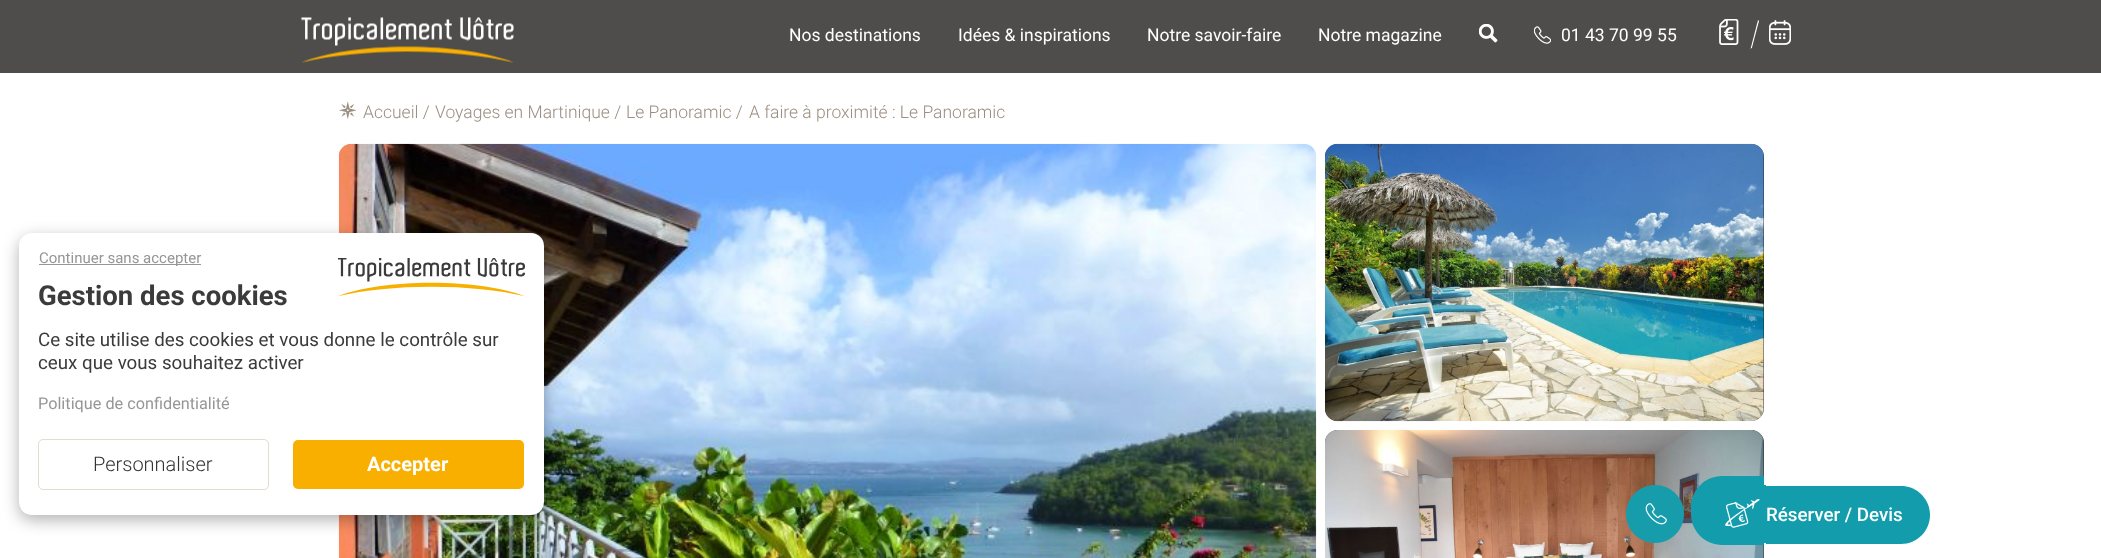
<svg xmlns="http://www.w3.org/2000/svg" xmlns:xlink="http://www.w3.org/1999/xlink" width="2101" height="558" viewBox="0 0 2101 558">
<style>
.cls-1{font:17.5px Roboto;fill:#ffffff}
.cls-2{font:300 17.5px Roboto;fill:#9a8f81}
.cls-3{font:15px Roboto;fill:#969696}
.cls-4{font:bold 27.5px Roboto;fill:#3b3b3b}
.cls-5{font:18.75px Roboto;fill:#3b3b3b}
.cls-6{font:16.25px Roboto;fill:#969696}
.cls-7{font:300 20px Roboto;fill:#333333}
.cls-8{font:bold 20px Roboto;fill:#ffffff}
.cls-9{font:500 18.75px Roboto;fill:#ffffff}
</style>
<rect width="100%" height="100%" fill="#ffffff"/>
<rect fill="#4e4d4c" x="0" y="0" width="2101" height="73"/>
<image xlink:href="image0.png" x="301" y="17" width="213" height="46"/>
<image xlink:href="image1.png" x="1479" y="24" width="19" height="19"/>
<image xlink:href="image2.png" x="1534" y="26" width="17" height="18"/>
<image xlink:href="image3.png" x="1719" y="19" width="20" height="26"/>
<path fill="#ffffff" d="M1750.5 49L1758 20L1759 21L1752 47.5Z"/>
<image xlink:href="image4.png" x="1769" y="20" width="22" height="25"/>
<image xlink:href="image5.png" x="339" y="101" width="17" height="18"/>
<image xlink:href="image6.png" x="338" y="143" width="979" height="415"/>
<rect fill="#21201f" x="1325" y="144" width="439" height="277" rx="13"/>
<image xlink:href="image7.png" x="1325" y="143" width="439" height="279"/>
<rect fill="#21201f" x="1325" y="430" width="439" height="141" rx="13"/>
<image xlink:href="image8.png" x="1325" y="430" width="439" height="128"/>
<rect fill="#000000" fill-opacity="0.3" filter="blur(8px)" x="19" y="238" width="525" height="282" rx="13"/>
<rect fill="#ffffff" x="19" y="233" width="525" height="282" rx="13"/>
<image xlink:href="image9.png" x="338" y="258" width="187" height="38"/>
<rect fill="#969696" x="39" y="264" width="162" height="1"/>
<rect fill="none" stroke="#e3dcd1" x="38.5" y="439.5" width="230" height="50" rx="4.5"/>
<rect fill="#f8af00" x="293" y="440" width="231" height="49" rx="5"/>
<image xlink:href="image10.png" x="1626" y="485" width="58" height="58"/>
<path fill="#139cab" d="M1722 476H1764V545H1722C1705 545 1691 531 1691 514V507C1691 490 1705 476 1722 476Z"/>
<image xlink:href="image11.png" x="1725" y="499" width="35" height="29"/>
<rect fill="#139cab" x="1764" y="485" width="2" height="58"/>
<path fill="#139cab" d="M1766 486H1901C1917 486 1930 499 1930 515C1930 531 1917 544 1901 544H1766Z"/>
<text class="cls-1" x="789" y="41">Nos destinations</text>
<text class="cls-1" x="958" y="41">Idées &amp; inspirations</text>
<text class="cls-1" x="1147" y="41">Notre savoir-faire</text>
<text class="cls-1" x="1318" y="41">Notre magazine</text>
<text class="cls-1" x="1561" y="41">01 43 70 99 55</text>
<text class="cls-2" x="363" y="118">Accueil /</text>
<text class="cls-2" x="435" y="118">Voyages en Martinique /</text>
<text class="cls-2" x="626" y="118">Le Panoramic /</text>
<text class="cls-2" x="749" y="118">A faire à proximité : Le Panoramic</text>
<text class="cls-3" x="39" y="263">Continuer sans accepter</text>
<text class="cls-4" x="38" y="305">Gestion des cookies</text>
<text class="cls-5"><tspan x="38" y="346">Ce site utilise des cookies et vous donne le contrôle sur</tspan><tspan x="38" y="369">ceux que vous souhaitez activer</tspan></text>
<text class="cls-6" x="38" y="409">Politique de confidentialité</text>
<text class="cls-7" x="93" y="471">Personnaliser</text>
<text class="cls-8" x="367" y="471">Accepter</text>
<text class="cls-9" x="1766" y="521">Réserver / Devis</text>
</svg>
